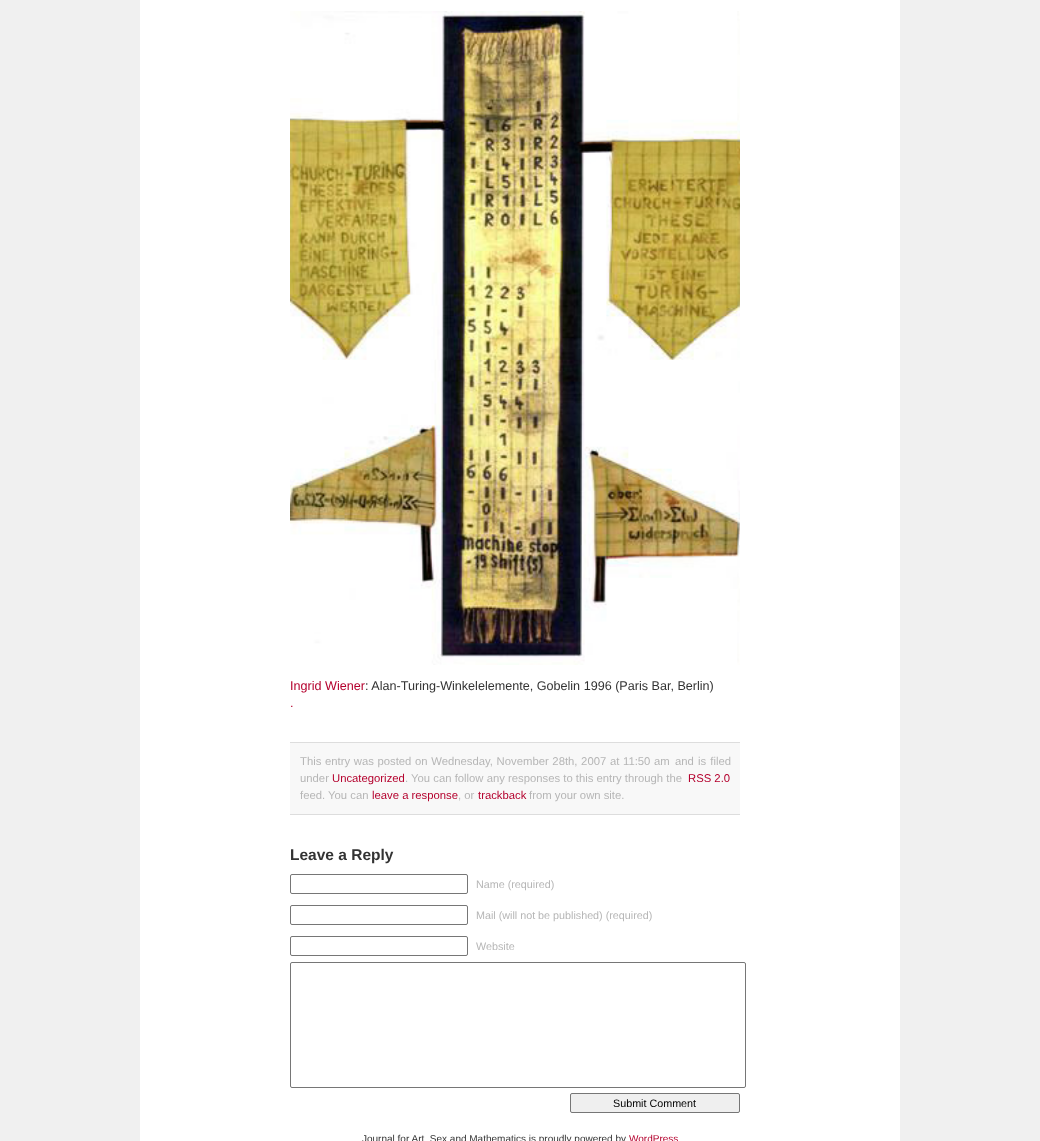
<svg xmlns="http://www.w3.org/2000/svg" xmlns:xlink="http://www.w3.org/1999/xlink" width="1040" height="1141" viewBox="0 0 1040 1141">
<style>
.cls-1{font:12.6px Liberation Sans;fill:#b4012d}
.cls-2{font:12.6px Liberation Sans;fill:#333333}
.cls-3{font:11.3px Liberation Sans;fill:#b6b6b6}
.cls-4{font:11.3px Liberation Sans;fill:#b4012d}
.cls-5{font:bold 15.5px Liberation Sans;fill:#333333}
.cls-6{font:10.75px Liberation Sans;fill:#b6b6b6}
.cls-7{font:10.75px Liberation Sans;fill:#000000}
.cls-8{font:10px Liberation Sans;fill:#333333}
.cls-9{font:10px Liberation Sans;fill:#b4012d}
</style>
<rect width="100%" height="100%" fill="#f0f0f0"/>
<rect fill="#ffffff" x="140" y="0" width="760" height="1141"/>
<image xlink:href="image0.png" x="290" y="11" width="450" height="654"/>
<rect fill="#f8f8f8" x="290" y="743" width="450" height="71"/>
<rect fill="#dddddd" x="290" y="742" width="450" height="1"/>
<rect fill="#dddddd" x="290" y="814" width="450" height="1"/>
<rect fill="none" stroke="#767676" x="290.5" y="874.5" width="177" height="19" rx="1.5"/>
<rect fill="none" stroke="#767676" x="290.5" y="905.5" width="177" height="19" rx="1.5"/>
<rect fill="none" stroke="#767676" x="290.5" y="936.5" width="177" height="19" rx="1.5"/>
<rect fill="none" stroke="#767676" x="290.5" y="962.5" width="455" height="125" rx="1.5"/>
<rect fill="#efefef" stroke="#767676" x="570.5" y="1093.5" width="169" height="19" rx="1.5"/>
<text class="cls-1" x="290" y="690">Ingrid Wiener</text>
<text class="cls-2" x="365" y="690">: Alan-Turing-Winkelelemente, Gobelin 1996 (Paris Bar, Berlin)</text>
<text class="cls-1" x="290" y="707">.</text>
<text class="cls-3" x="300" y="765" word-spacing="0.5">This entry was posted</text>
<text class="cls-3" x="415" y="765" word-spacing="0.5">on Wednesday, November 28th, 2007 at 11:50 am</text>
<text class="cls-3" x="675" y="765" word-spacing="1">and is filed</text>
<text class="cls-3" x="300" y="782">under</text>
<text class="cls-4" x="332" y="782">Uncategorized</text>
<text class="cls-3" x="405" y="782">. You can follow any responses to this entry through the</text>
<text class="cls-4" x="688" y="782">RSS 2.0</text>
<text class="cls-3" x="300" y="799">feed. You can</text>
<text class="cls-4" x="372" y="799">leave a response</text>
<text class="cls-3" x="458" y="799">, or</text>
<text class="cls-4" x="478" y="799">trackback</text>
<text class="cls-3" x="529" y="799">from your own site.</text>
<text class="cls-5" x="290" y="860">Leave a Reply</text>
<text class="cls-6" x="476" y="888">Name (required)</text>
<text class="cls-6" x="476" y="919">Mail (will not be published) (required)</text>
<text class="cls-6" x="476" y="950">Website</text>
<text class="cls-7" x="613" y="1107">Submit Comment</text>
<text class="cls-8" x="362" y="1142">Journal for Art, Sex and Mathematics is proudly powered by</text>
<text class="cls-9" x="629" y="1142">WordPress</text>
</svg>
